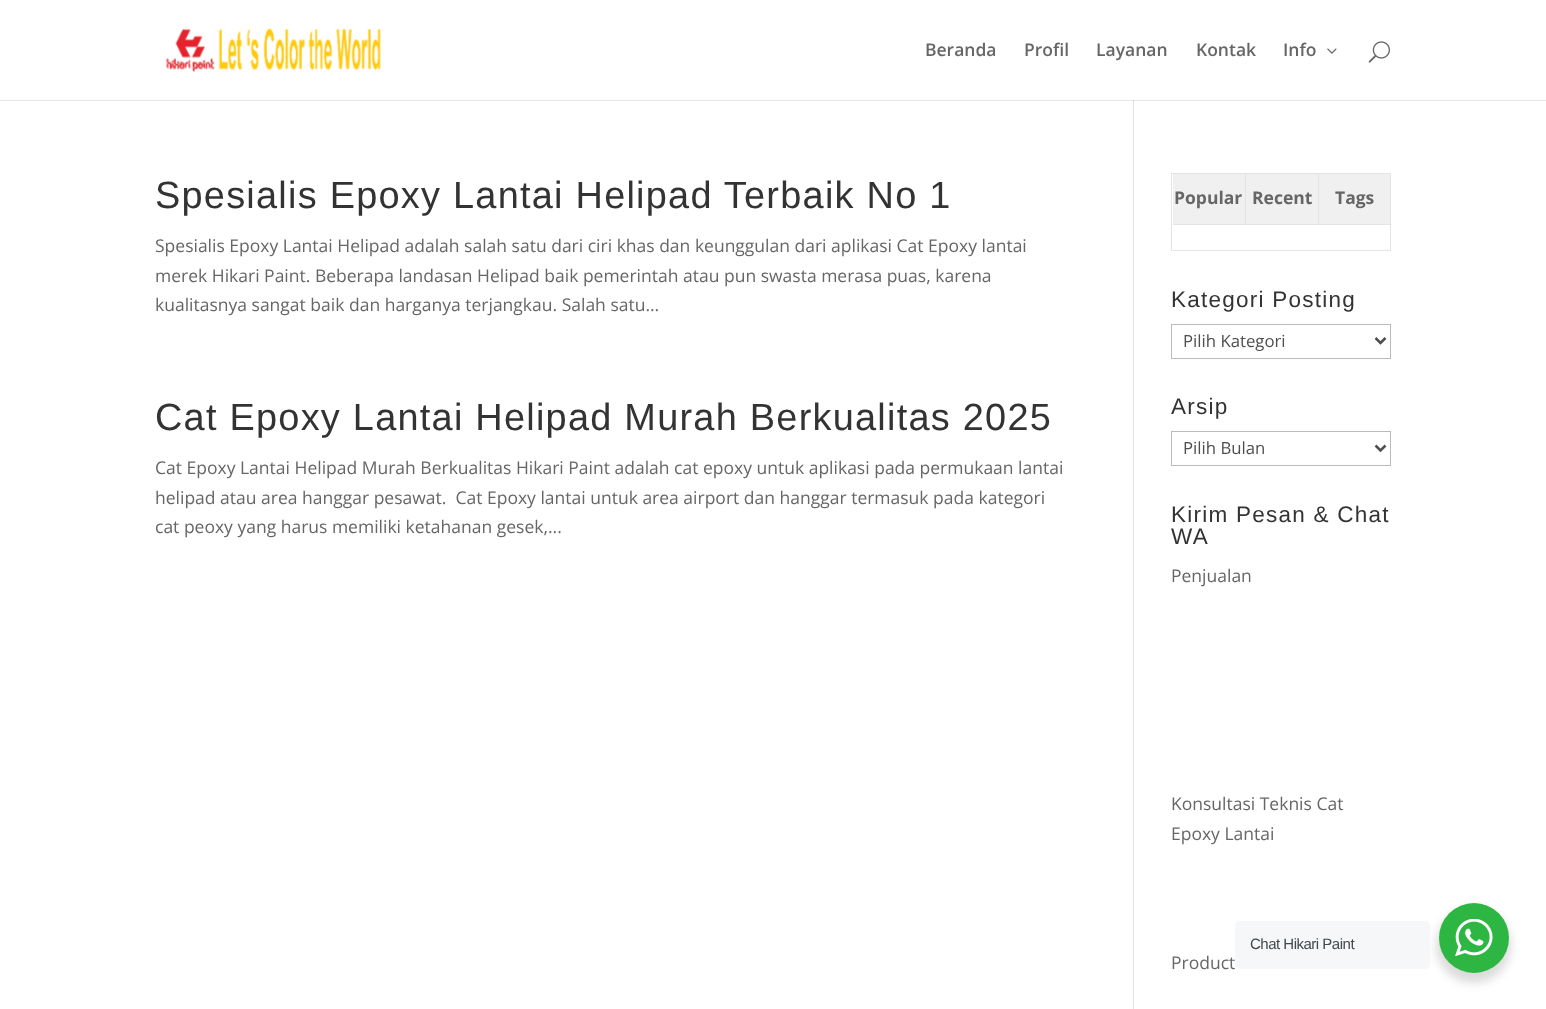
<svg xmlns="http://www.w3.org/2000/svg" xmlns:xlink="http://www.w3.org/1999/xlink" width="1546" height="1009" viewBox="0 0 1546 1009">
<style>
.cls-1{font:600 17.5px Open Sans;fill:#666666}
.cls-2{font:37.9px Liberation Sans;letter-spacing:1.25px;fill:#333333}
.cls-3{font:17.5px Open Sans;fill:#666666}
.cls-4{font:bold 17.5px Open Sans;fill:#666666}
.cls-5{font:22.5px Liberation Sans;letter-spacing:1.25px;fill:#333333}
.cls-6{font:16.75px Open Sans;fill:#4e4e4e}
.cls-7{font:15px Liberation Sans;letter-spacing:-0.5px;fill:#43474e}
</style>
<rect width="100%" height="100%" fill="#ffffff"/>
<rect fill="#e6e6e6" x="0" y="100" width="1546" height="1"/>
<image xlink:href="image0.png" x="165" y="28" width="216" height="45"/>
<image xlink:href="image1.png" x="1327" y="48" width="10" height="6"/>
<image xlink:href="image2.png" x="1368" y="41" width="22" height="22"/>
<rect fill="#e2e2e2" x="1133" y="100" width="1" height="909"/>
<rect fill="#cbcbcb" x="1133" y="100" width="1" height="1"/>
<rect fill="none" stroke="#e4e4e4" x="1171.5" y="173.5" width="219" height="77"/>
<rect fill="#f0f0f0" x="1173" y="174" width="72" height="50"/>
<rect fill="#e4e4e4" x="1173" y="224" width="217" height="1"/>
<rect fill="#f0f0f0" x="1246" y="174" width="72" height="50"/>
<rect fill="#e4e4e4" x="1245" y="174" width="1" height="51"/>
<rect fill="#f0f0f0" x="1319" y="174" width="71" height="50"/>
<rect fill="#e4e4e4" x="1318" y="174" width="1" height="51"/>
<rect fill="none" stroke="#bbbbbb" x="1171.5" y="324.5" width="219" height="34"/>
<path fill="none" stroke="#4e4e4e" stroke-width="2.5" d="M1375.5 338L1380.5 343L1385.5 338"/>
<rect fill="none" stroke="#bbbbbb" x="1171.5" y="431.5" width="219" height="34"/>
<path fill="none" stroke="#4e4e4e" stroke-width="2.5" d="M1375.5 445.5L1380.5 450.5L1385.5 445.5"/>
<rect fill="#000000" fill-opacity="0.14" filter="blur(5px)" x="1436" y="908" width="75" height="75" rx="37.5"/>
<rect fill="#f5f7f9" x="1235" y="921" width="195" height="48" rx="5"/>
<circle fill="#2db742" cx="1474" cy="938" r="35"/>
<image xlink:href="image3.png" x="1455" y="919" width="38" height="37"/>
<text class="cls-1" x="925" y="56">Beranda</text>
<text class="cls-1" x="1024" y="56">Profil</text>
<text class="cls-1" x="1096" y="56">Layanan</text>
<text class="cls-1" x="1196" y="56">Kontak</text>
<text class="cls-1" x="1283" y="56">Info</text>
<text class="cls-2" x="155" y="208">Spesialis Epoxy Lantai Helipad Terbaik No 1</text>
<text class="cls-3"><tspan x="155" y="252">Spesialis Epoxy Lantai Helipad adalah salah satu dari ciri khas dan keunggulan dari aplikasi Cat Epoxy lantai</tspan><tspan x="155" y="282">merek Hikari Paint. Beberapa landasan Helipad baik pemerintah atau pun swasta merasa puas, karena</tspan><tspan x="155" y="311">kualitasnya sangat baik dan harganya terjangkau. Salah satu...</tspan></text>
<text class="cls-2" x="155" y="430">Cat Epoxy Lantai Helipad Murah Berkualitas 2025</text>
<text class="cls-3" xml:space="preserve"><tspan x="155" y="474">Cat Epoxy Lantai Helipad Murah Berkualitas Hikari Paint adalah cat epoxy untuk aplikasi pada permukaan lantai</tspan><tspan x="155" y="504">helipad atau area hanggar pesawat.  Cat Epoxy lantai untuk area airport dan hanggar termasuk pada kategori</tspan><tspan x="155" y="533">cat peoxy yang harus memiliki ketahanan gesek,...</tspan></text>
<text class="cls-4" x="1174" y="204">Popular</text>
<text class="cls-4" x="1252" y="204">Recent</text>
<text class="cls-4" x="1335" y="204">Tags</text>
<text class="cls-5" x="1171" y="307">Kategori Posting</text>
<text class="cls-6" x="1183" y="347">Pilih Kategori</text>
<text class="cls-5" x="1171" y="414">Arsip</text>
<text class="cls-6" x="1183" y="454">Pilih Bulan</text>
<text class="cls-5"><tspan x="1171" y="522">Kirim Pesan &amp; Chat</tspan><tspan x="1171" y="544">WA</tspan></text>
<text class="cls-3" x="1171" y="582">Penjualan</text>
<text class="cls-3"><tspan x="1171" y="810">Konsultasi Teknis Cat</tspan><tspan x="1171" y="840">Epoxy Lantai</tspan></text>
<text class="cls-3" x="1171" y="969">Product</text>
<text class="cls-7" x="1250" y="949">Chat Hikari Paint</text>
</svg>
